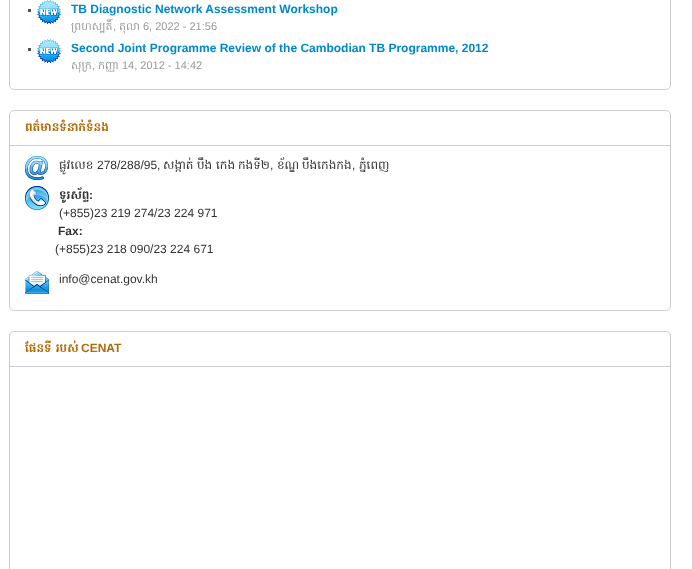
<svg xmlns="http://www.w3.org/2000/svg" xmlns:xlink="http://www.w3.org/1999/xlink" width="693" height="569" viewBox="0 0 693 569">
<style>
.cls-1{font:bold 12px Liberation Sans;fill:#0088cc}
.cls-2{font:11px Hanuman;fill:#999999}
.cls-3{font:11px Liberation Sans;fill:#999999}
.cls-4{font:bold 12px Hanuman;fill:#b06a07}
.cls-5{font:12px Hanuman;fill:#333333}
.cls-6{font:12px Liberation Sans;fill:#333333}
.cls-7{font:bold 12px Hanuman;fill:#333333}
.cls-8{font:bold 12px Liberation Sans;fill:#333333}
.cls-9{font:bold 12px Liberation Sans;fill:#b06a07}
</style>
<rect width="100%" height="100%" fill="#ffffff"/>
<rect fill="#cdcdcd" x="692" y="0" width="1" height="569"/>
<rect fill="none" stroke="#cccccc" x="9.5" y="-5.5" width="661" height="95" rx="4.5"/>
<rect fill="#4e4e4e" x="28" y="9" width="3" height="3"/>
<image xlink:href="image0.png" x="37" y="0" width="24" height="24"/>
<rect fill="#4e4e4e" x="28" y="48" width="3" height="3"/>
<image xlink:href="image0.png" x="37" y="39" width="24" height="24"/>
<rect fill="none" stroke="#cccccc" x="9.5" y="110.5" width="661" height="200" rx="4.5"/>
<rect fill="#cdcdcd" x="10" y="145" width="660" height="1"/>
<image xlink:href="image1.png" x="25" y="156" width="23" height="24"/>
<image xlink:href="image2.png" x="25" y="186" width="24" height="24"/>
<image xlink:href="image3.png" x="25" y="271" width="24" height="23"/>
<rect fill="none" stroke="#cccccc" x="9.5" y="331.5" width="661" height="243" rx="4.5"/>
<rect fill="#cdcdcd" x="10" y="366" width="660" height="1"/>
<text class="cls-1" x="71" y="13">TB Diagnostic Network Assessment Workshop</text>
<text class="cls-2" x="71" y="30">ព្រហស្បតិ៍</text>
<text class="cls-3" x="113" y="30">,</text>
<text class="cls-2" x="119" y="30">តុលា</text>
<text class="cls-3" x="143" y="30">6, 2022 - 21:56</text>
<text class="cls-1" x="71" y="52">Second Joint Programme Review of the Cambodian TB Programme, 2012</text>
<text class="cls-2" x="71" y="69">សុក្រ</text>
<text class="cls-3" x="92" y="69">,</text>
<text class="cls-2" x="98" y="69">កញ្ញា</text>
<text class="cls-3" x="122" y="69">14, 2012 - 14:42</text>
<text class="cls-4" x="25" y="131">ពត៌មានទំនាក់ទំនង</text>
<text class="cls-5" x="59" y="169">ផ្លូវលេខ</text>
<text class="cls-6" x="97" y="169">278/288/95,</text>
<text class="cls-5" x="163" y="169">សង្កាត់</text>
<text class="cls-5" x="197" y="169">បឹង</text>
<text class="cls-5" x="216" y="169">កេង</text>
<text class="cls-5" x="238" y="169">កងទី២</text>
<text class="cls-6" x="270" y="169">,</text>
<text class="cls-5" x="277" y="169">ខ័ណ្ឌ</text>
<text class="cls-5" x="302" y="169">បឹងកេងកង</text>
<text class="cls-6" x="352" y="169">,</text>
<text class="cls-5" x="359" y="169">ភ្នំពេញ</text>
<text class="cls-7" x="59" y="199">ទូរស័ព្ទ</text>
<text class="cls-8" x="89" y="199">:</text>
<text class="cls-6" x="59" y="217">(+855)23 219 274/23 224 971</text>
<text class="cls-8" x="58" y="235">Fax:</text>
<text class="cls-6" x="55" y="253">(+855)23 218 090/23 224 671</text>
<text class="cls-6" x="59" y="283">info@cenat.gov.kh</text>
<text class="cls-4" x="25" y="352">ផែនទី របស់</text>
<text class="cls-9" x="81" y="352">CENAT</text>
</svg>
